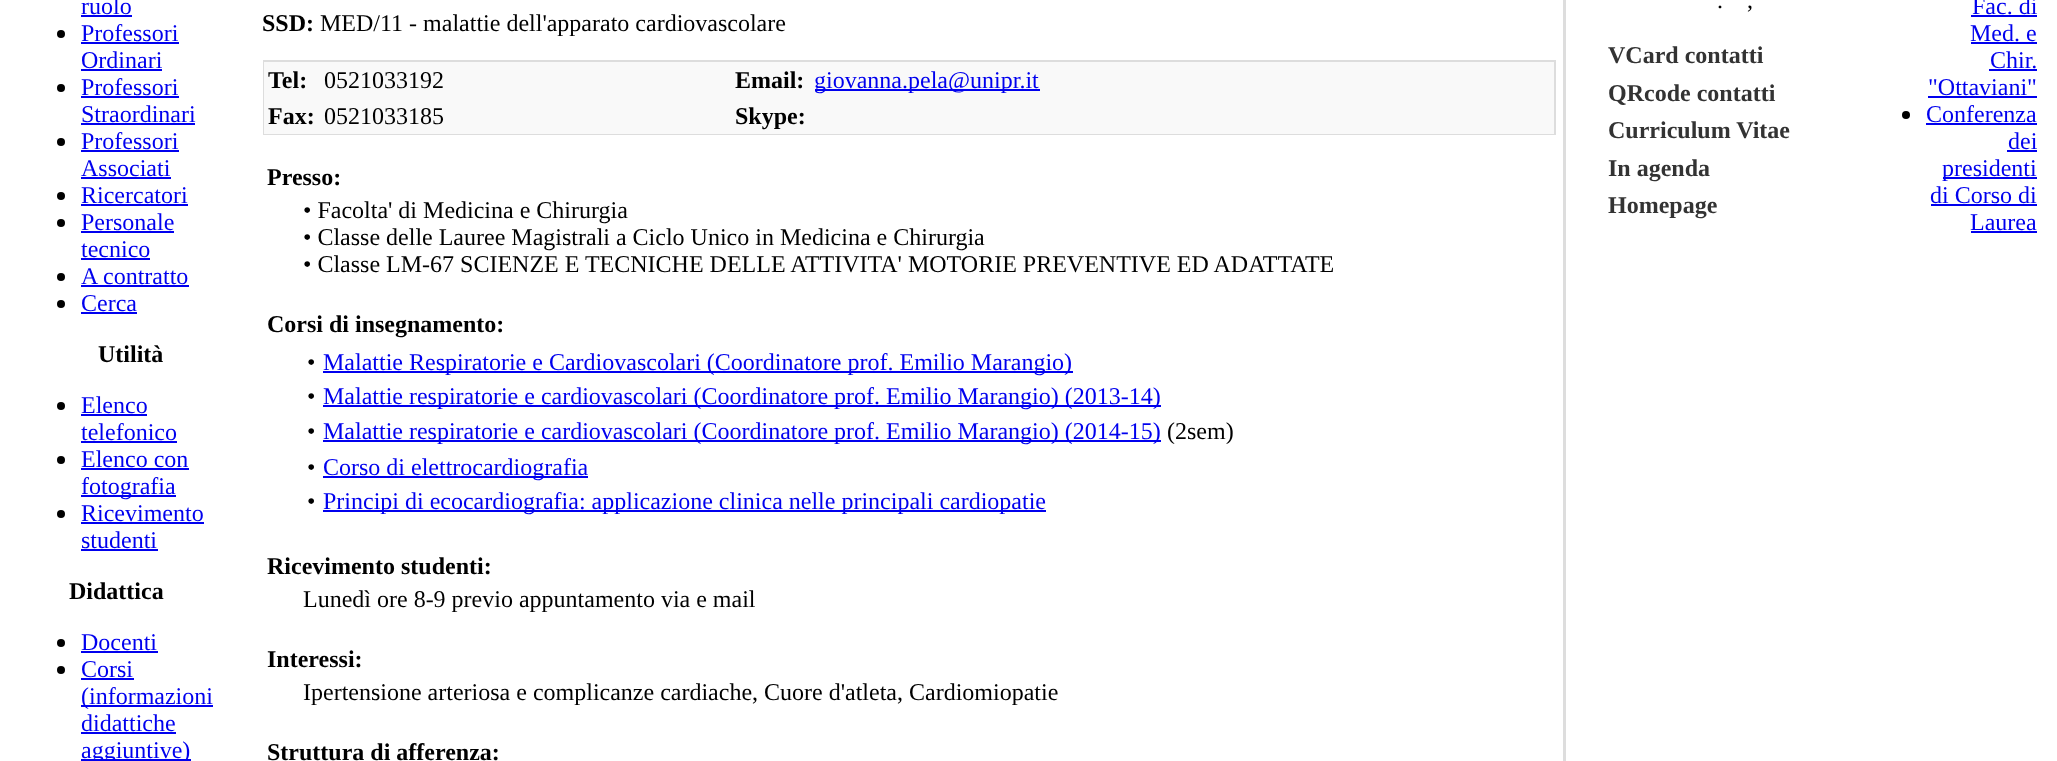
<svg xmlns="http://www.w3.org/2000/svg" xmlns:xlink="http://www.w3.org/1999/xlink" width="2057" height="761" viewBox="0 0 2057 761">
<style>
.cls-1{font:24px Liberation Serif;fill:#0000ee}
.cls-2{font:bold 24px Liberation Serif;fill:#000000}
.cls-3{font:24px Liberation Serif;fill:#000000}
.cls-4{font:bold 24px Liberation Serif;fill:#333333}
</style>
<rect width="100%" height="100%" fill="#ffffff"/>
<rect fill="#0000ee" x="81" y="15" width="51" height="2"/>
<circle fill="#000000" cx="61" cy="34" r="4"/>
<rect fill="#0000ee" x="81" y="42" width="98" height="2"/>
<rect fill="#0000ee" x="81" y="69" width="81" height="2"/>
<circle fill="#000000" cx="61" cy="88" r="4"/>
<rect fill="#0000ee" x="81" y="96" width="98" height="2"/>
<rect fill="#0000ee" x="81" y="123" width="114" height="2"/>
<circle fill="#000000" cx="61" cy="142" r="4"/>
<rect fill="#0000ee" x="81" y="150" width="98" height="2"/>
<rect fill="#0000ee" x="81" y="177" width="90" height="2"/>
<circle fill="#000000" cx="61" cy="196" r="4"/>
<rect fill="#0000ee" x="81" y="204" width="107" height="2"/>
<circle fill="#000000" cx="61" cy="223" r="4"/>
<rect fill="#0000ee" x="81" y="231" width="93" height="2"/>
<rect fill="#0000ee" x="81" y="258" width="69" height="2"/>
<circle fill="#000000" cx="61" cy="277" r="4"/>
<rect fill="#0000ee" x="81" y="285" width="108" height="2"/>
<circle fill="#000000" cx="61" cy="304" r="4"/>
<rect fill="#0000ee" x="81" y="312" width="56" height="2"/>
<circle fill="#000000" cx="61" cy="406" r="4"/>
<rect fill="#0000ee" x="81" y="414" width="66" height="2"/>
<rect fill="#0000ee" x="81" y="441" width="96" height="2"/>
<circle fill="#000000" cx="61" cy="460" r="4"/>
<rect fill="#0000ee" x="81" y="468" width="108" height="2"/>
<rect fill="#0000ee" x="81" y="495" width="95" height="2"/>
<circle fill="#000000" cx="61" cy="514" r="4"/>
<rect fill="#0000ee" x="81" y="522" width="123" height="2"/>
<rect fill="#0000ee" x="81" y="549" width="77" height="2"/>
<circle fill="#000000" cx="61" cy="643" r="4"/>
<rect fill="#0000ee" x="81" y="651" width="77" height="2"/>
<circle fill="#000000" cx="61" cy="670" r="4"/>
<rect fill="#0000ee" x="81" y="678" width="53" height="2"/>
<rect fill="#0000ee" x="81" y="705" width="132" height="2"/>
<rect fill="#0000ee" x="81" y="732" width="95" height="2"/>
<rect fill="#0000ee" x="81" y="759" width="110" height="2"/>
<rect fill="#dddddd" x="263" y="60" width="1293" height="75"/>
<rect fill="#f9f9f9" x="264" y="62" width="1290" height="72"/>
<rect fill="#0000ee" x="815" y="89" width="225" height="2"/>
<rect fill="#0000ee" x="323" y="371" width="750" height="2"/>
<rect fill="#0000ee" x="323" y="405" width="838" height="2"/>
<rect fill="#0000ee" x="323" y="440" width="838" height="2"/>
<rect fill="#0000ee" x="323" y="476" width="265" height="2"/>
<rect fill="#0000ee" x="323" y="510" width="723" height="2"/>
<rect fill="#dddddd" x="1563" y="0" width="3" height="761"/>
<rect fill="#0000ee" x="1971" y="15" width="66" height="2"/>
<rect fill="#0000ee" x="1971" y="42" width="66" height="2"/>
<rect fill="#0000ee" x="1989" y="69" width="48" height="2"/>
<rect fill="#0000ee" x="1928" y="96" width="109" height="2"/>
<circle fill="#000000" cx="1906" cy="115" r="4"/>
<rect fill="#0000ee" x="1926" y="123" width="111" height="2"/>
<rect fill="#0000ee" x="2007" y="150" width="30" height="2"/>
<rect fill="#0000ee" x="1943" y="177" width="94" height="2"/>
<rect fill="#0000ee" x="1931" y="204" width="106" height="2"/>
<rect fill="#0000ee" x="1971" y="231" width="66" height="2"/>
<text class="cls-1"><tspan x="81" y="14">ruolo</tspan><tspan x="81" y="41">Professori</tspan><tspan x="81" y="68">Ordinari</tspan><tspan x="81" y="95">Professori</tspan><tspan x="81" y="122">Straordinari</tspan><tspan x="81" y="149">Professori</tspan><tspan x="81" y="176">Associati</tspan><tspan x="81" y="203">Ricercatori</tspan><tspan x="81" y="230">Personale</tspan><tspan x="81" y="257">tecnico</tspan><tspan x="81" y="284">A contratto</tspan><tspan x="81" y="311">Cerca</tspan></text>
<text class="cls-2" x="98" y="362">Utilità</text>
<text class="cls-1"><tspan x="81" y="413">Elenco</tspan><tspan x="81" y="440">telefonico</tspan><tspan x="81" y="467">Elenco con</tspan><tspan x="81" y="494">fotografia</tspan><tspan x="81" y="521">Ricevimento</tspan><tspan x="81" y="548">studenti</tspan></text>
<text class="cls-2" x="69" y="599">Didattica</text>
<text class="cls-1"><tspan x="81" y="650">Docenti</tspan><tspan x="81" y="677">Corsi</tspan><tspan x="81" y="704">(informazioni</tspan><tspan x="81" y="731">didattiche</tspan><tspan x="81" y="758">aggiuntive)</tspan></text>
<text class="cls-2" x="262" y="31">SSD:</text>
<text class="cls-3" x="320" y="31">MED/11 - malattie dell'apparato cardiovascolare</text>
<text class="cls-2" x="268" y="88">Tel:</text>
<text class="cls-3" x="324" y="88">0521033192</text>
<text class="cls-2" x="735" y="88">Email:</text>
<text class="cls-1" x="814" y="88">giovanna.pela@unipr.it</text>
<text class="cls-2" x="268" y="124">Fax:</text>
<text class="cls-3" x="324" y="124">0521033185</text>
<text class="cls-2" x="735" y="124">Skype:</text>
<text class="cls-2" x="267" y="185">Presso:</text>
<text class="cls-3"><tspan x="303" y="218">• Facolta' di Medicina e Chirurgia</tspan><tspan x="303" y="245">• Classe delle Lauree Magistrali a Ciclo Unico in Medicina e Chirurgia</tspan><tspan x="303" y="272">• Classe LM-67 SCIENZE E TECNICHE DELLE ATTIVITA' MOTORIE PREVENTIVE ED ADATTATE</tspan></text>
<text class="cls-2" x="267" y="332">Corsi di insegnamento:</text>
<text class="cls-3" x="307" y="370">•</text>
<text class="cls-1" x="323" y="370">Malattie Respiratorie e Cardiovascolari (Coordinatore prof. Emilio Marangio)</text>
<text class="cls-3" x="307" y="404">•</text>
<text class="cls-1" x="323" y="404">Malattie respiratorie e cardiovascolari (Coordinatore prof. Emilio Marangio) (2013-14)</text>
<text class="cls-3" x="307" y="439">•</text>
<text class="cls-1" x="323" y="439">Malattie respiratorie e cardiovascolari (Coordinatore prof. Emilio Marangio) (2014-15)</text>
<text class="cls-3" x="1167" y="439">(2sem)</text>
<text class="cls-3" x="307" y="475">•</text>
<text class="cls-1" x="323" y="475">Corso di elettrocardiografia</text>
<text class="cls-3" x="307" y="509">•</text>
<text class="cls-1" x="323" y="509">Principi di ecocardiografia: applicazione clinica nelle principali cardiopatie</text>
<text class="cls-2" x="267" y="574">Ricevimento studenti:</text>
<text class="cls-3" x="303" y="607">Lunedì ore 8-9 previo appuntamento via e mail</text>
<text class="cls-2" x="267" y="667">Interessi:</text>
<text class="cls-3" x="303" y="700">Ipertensione arteriosa e complicanze cardiache, Cuore d'atleta, Cardiomiopatie</text>
<text class="cls-2" x="267" y="760">Struttura di afferenza:</text>
<text class="cls-3" x="1717" y="8">.</text>
<text class="cls-3" x="1747" y="8">,</text>
<text class="cls-4"><tspan x="1608" y="63">VCard contatti</tspan><tspan x="1608" y="101">QRcode contatti</tspan><tspan x="1608" y="138">Curriculum Vitae</tspan><tspan x="1608" y="176">In agenda</tspan><tspan x="1608" y="213">Homepage</tspan></text>
<text class="cls-1" x="1972" y="14">Fac. di</text>
<text class="cls-1" x="1970" y="41">Med. e</text>
<text class="cls-1" x="1990" y="68">Chir.</text>
<text class="cls-1" x="1928" y="95">"Ottaviani"</text>
<text class="cls-1" x="1926" y="122">Conferenza</text>
<text class="cls-1" x="2008" y="149">dei</text>
<text class="cls-1" x="1942" y="176">presidenti</text>
<text class="cls-1" x="1930" y="203">di Corso di</text>
<text class="cls-1" x="1970" y="230">Laurea</text>
</svg>
